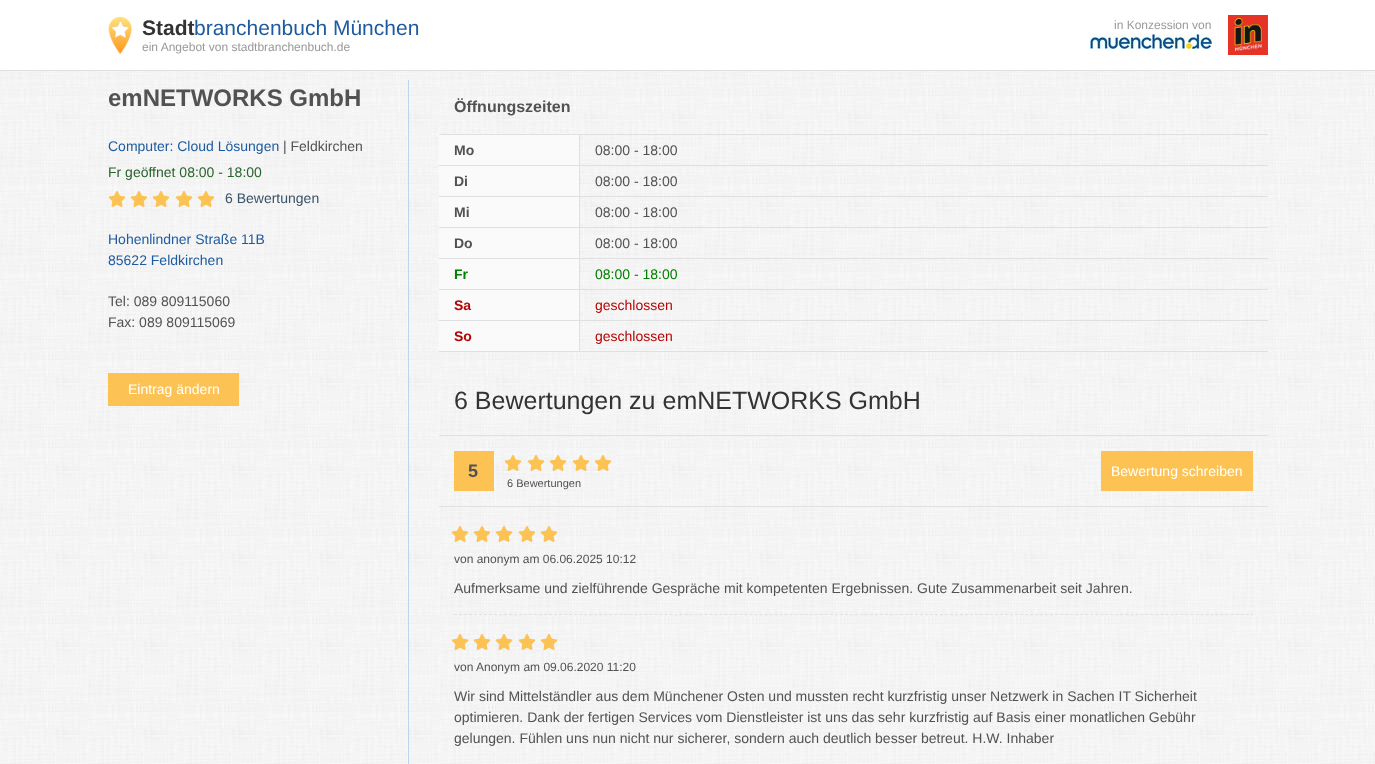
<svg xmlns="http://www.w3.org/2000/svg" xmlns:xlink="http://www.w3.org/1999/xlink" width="1375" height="764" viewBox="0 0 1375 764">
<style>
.cls-1{font:bold 21px Liberation Sans;fill:#333333}
.cls-2{font:21px Liberation Sans;fill:#1d5a9f}
.cls-3{font:12px Liberation Sans;fill:#999999}
.cls-4{font:bold 24px Liberation Sans;fill:#525252}
.cls-5{font:14px Liberation Sans;fill:#1d5a9f}
.cls-6{font:14px Liberation Sans;fill:#525252}
.cls-7{font:14px Liberation Sans;fill:#2a642d}
.cls-8{font:14px Liberation Sans;fill:#3a5368}
.cls-9{font:14px Liberation Sans;fill:#ffffff}
.cls-10{font:bold 16px Liberation Sans;fill:#525252}
.cls-11{font:bold 14px Liberation Sans;fill:#525252}
.cls-12{font:bold 14px Liberation Sans;fill:#008000}
.cls-13{font:14px Liberation Sans;fill:#008000}
.cls-14{font:bold 14px Liberation Sans;fill:#b30505}
.cls-15{font:14px Liberation Sans;fill:#b30505}
.cls-16{font:25px Liberation Sans;fill:#333333}
.cls-17{font:bold 18px Liberation Sans;fill:#525252}
.cls-18{font:11px Liberation Sans;fill:#525252}
.cls-19{font:12px Liberation Sans;fill:#525252}
</style>
<rect width="100%" height="100%" fill="#ffffff"/>
<image xlink:href="image0.png" x="0" y="71" width="1375" height="693"/>
<rect fill="#e0e0e0" x="0" y="70" width="1375" height="1"/>
<image xlink:href="image1.png" x="108" y="17" width="24" height="37"/>
<image xlink:href="image2.png" x="1090" y="34" width="122" height="15"/>
<image xlink:href="image3.png" x="1228" y="15" width="40" height="40"/>
<image xlink:href="image4.png" x="108" y="191" width="18" height="16"/>
<image xlink:href="image5.png" x="130" y="191" width="18" height="16"/>
<image xlink:href="image6.png" x="152" y="191" width="18" height="16"/>
<image xlink:href="image7.png" x="175" y="191" width="18" height="16"/>
<image xlink:href="image8.png" x="197" y="191" width="18" height="16"/>
<rect fill="#fcc354" x="108" y="373" width="131" height="33"/>
<rect fill="#bdd4ea" x="408" y="80" width="1" height="684"/>
<rect fill="#e0e0e0" x="439" y="134" width="829" height="1"/>
<rect fill="#e0e0e0" x="439" y="165" width="829" height="1"/>
<rect fill="#fafafa" x="439" y="135" width="140" height="30"/>
<rect fill="#e0e0e0" x="579" y="135" width="1" height="30"/>
<rect fill="#e0e0e0" x="439" y="196" width="829" height="1"/>
<rect fill="#fafafa" x="439" y="166" width="140" height="30"/>
<rect fill="#e0e0e0" x="579" y="166" width="1" height="30"/>
<rect fill="#e0e0e0" x="439" y="227" width="829" height="1"/>
<rect fill="#fafafa" x="439" y="197" width="140" height="30"/>
<rect fill="#e0e0e0" x="579" y="197" width="1" height="30"/>
<rect fill="#e0e0e0" x="439" y="258" width="829" height="1"/>
<rect fill="#fafafa" x="439" y="228" width="140" height="30"/>
<rect fill="#e0e0e0" x="579" y="228" width="1" height="30"/>
<rect fill="#e0e0e0" x="439" y="289" width="829" height="1"/>
<rect fill="#fafafa" x="439" y="259" width="140" height="30"/>
<rect fill="#e0e0e0" x="579" y="259" width="1" height="30"/>
<rect fill="#e0e0e0" x="439" y="320" width="829" height="1"/>
<rect fill="#fafafa" x="439" y="290" width="140" height="30"/>
<rect fill="#e0e0e0" x="579" y="290" width="1" height="30"/>
<rect fill="#e0e0e0" x="439" y="351" width="829" height="1"/>
<rect fill="#fafafa" x="439" y="321" width="140" height="30"/>
<rect fill="#e0e0e0" x="579" y="321" width="1" height="30"/>
<rect fill="#e0e0e0" x="439" y="435" width="829" height="1"/>
<rect fill="#e0e0e0" x="439" y="506" width="829" height="1"/>
<rect fill="#fcc354" x="454" y="451" width="40" height="40"/>
<image xlink:href="image6.png" x="504" y="455" width="18" height="16"/>
<image xlink:href="image7.png" x="527" y="455" width="18" height="16"/>
<image xlink:href="image8.png" x="549" y="455" width="18" height="16"/>
<image xlink:href="image9.png" x="572" y="455" width="18" height="16"/>
<image xlink:href="image10.png" x="594" y="455" width="18" height="16"/>
<rect fill="#fcc354" x="1101" y="451" width="152" height="40"/>
<path fill="none" stroke="#e0e0e0" stroke-dasharray="3 2.01" d="M454 614.5H1253"/>
<image xlink:href="image11.png" x="451" y="526" width="18" height="16"/>
<image xlink:href="image12.png" x="473" y="526" width="18" height="16"/>
<image xlink:href="image13.png" x="495" y="526" width="18" height="16"/>
<image xlink:href="image14.png" x="518" y="526" width="18" height="16"/>
<image xlink:href="image15.png" x="540" y="526" width="18" height="16"/>
<image xlink:href="image16.png" x="451" y="634" width="18" height="16"/>
<image xlink:href="image17.png" x="473" y="634" width="18" height="16"/>
<image xlink:href="image18.png" x="495" y="634" width="18" height="16"/>
<image xlink:href="image19.png" x="518" y="634" width="18" height="16"/>
<image xlink:href="image20.png" x="540" y="634" width="18" height="16"/>
<text class="cls-1" x="142" y="35">Stadt</text>
<text class="cls-2" x="194" y="35">branchenbuch München</text>
<text class="cls-3" x="142" y="51">ein Angebot von stadtbranchenbuch.de</text>
<text class="cls-3" x="1114" y="29">in Konzession von</text>
<text class="cls-4" x="108" y="106">emNETWORKS GmbH</text>
<text class="cls-5" x="108" y="151">Computer: Cloud Lösungen</text>
<text class="cls-6" x="283" y="151">| Feldkirchen</text>
<text class="cls-7" x="108" y="177">Fr geöffnet 08:00 - 18:00</text>
<text class="cls-8" x="225" y="203">6 Bewertungen</text>
<text class="cls-5"><tspan x="108" y="244">Hohenlindner Straße 11B</tspan><tspan x="108" y="265">85622 Feldkirchen</tspan></text>
<text class="cls-6"><tspan x="108" y="306">Tel: 089 809115060</tspan><tspan x="108" y="327">Fax: 089 809115069</tspan></text>
<text class="cls-9" x="128" y="394">Eintrag ändern</text>
<text class="cls-10" x="454" y="112">Öffnungszeiten</text>
<text class="cls-11" x="454" y="155">Mo</text>
<text class="cls-6" x="595" y="155">08:00 - 18:00</text>
<text class="cls-11" x="454" y="186">Di</text>
<text class="cls-6" x="595" y="186">08:00 - 18:00</text>
<text class="cls-11" x="454" y="217">Mi</text>
<text class="cls-6" x="595" y="217">08:00 - 18:00</text>
<text class="cls-11" x="454" y="248">Do</text>
<text class="cls-6" x="595" y="248">08:00 - 18:00</text>
<text class="cls-12" x="454" y="279">Fr</text>
<text class="cls-13" x="595" y="279">08:00 - 18:00</text>
<text class="cls-14" x="454" y="310">Sa</text>
<text class="cls-15" x="595" y="310">geschlossen</text>
<text class="cls-14" x="454" y="341">So</text>
<text class="cls-15" x="595" y="341">geschlossen</text>
<text class="cls-16" x="454" y="409">6 Bewertungen zu emNETWORKS GmbH</text>
<text class="cls-17" x="468" y="477">5</text>
<text class="cls-18" x="507" y="487">6 Bewertungen</text>
<text class="cls-9" x="1111" y="476">Bewertung schreiben</text>
<text class="cls-19" x="454" y="563">von anonym am 06.06.2025 10:12</text>
<text class="cls-6" x="454" y="593">Aufmerksame und zielführende Gespräche mit kompetenten Ergebnissen. Gute Zusammenarbeit seit Jahren.</text>
<text class="cls-19" x="454" y="671">von Anonym am 09.06.2020 11:20</text>
<text class="cls-6"><tspan x="454" y="701">Wir sind Mittelständler aus dem Münchener Osten und mussten recht kurzfristig unser Netzwerk in Sachen IT Sicherheit</tspan><tspan x="454" y="722">optimieren. Dank der fertigen Services vom Dienstleister ist uns das sehr kurzfristig auf Basis einer monatlichen Gebühr</tspan><tspan x="454" y="743">gelungen. Fühlen uns nun nicht nur sicherer, sondern auch deutlich besser betreut. H.W. Inhaber</tspan></text>
</svg>
